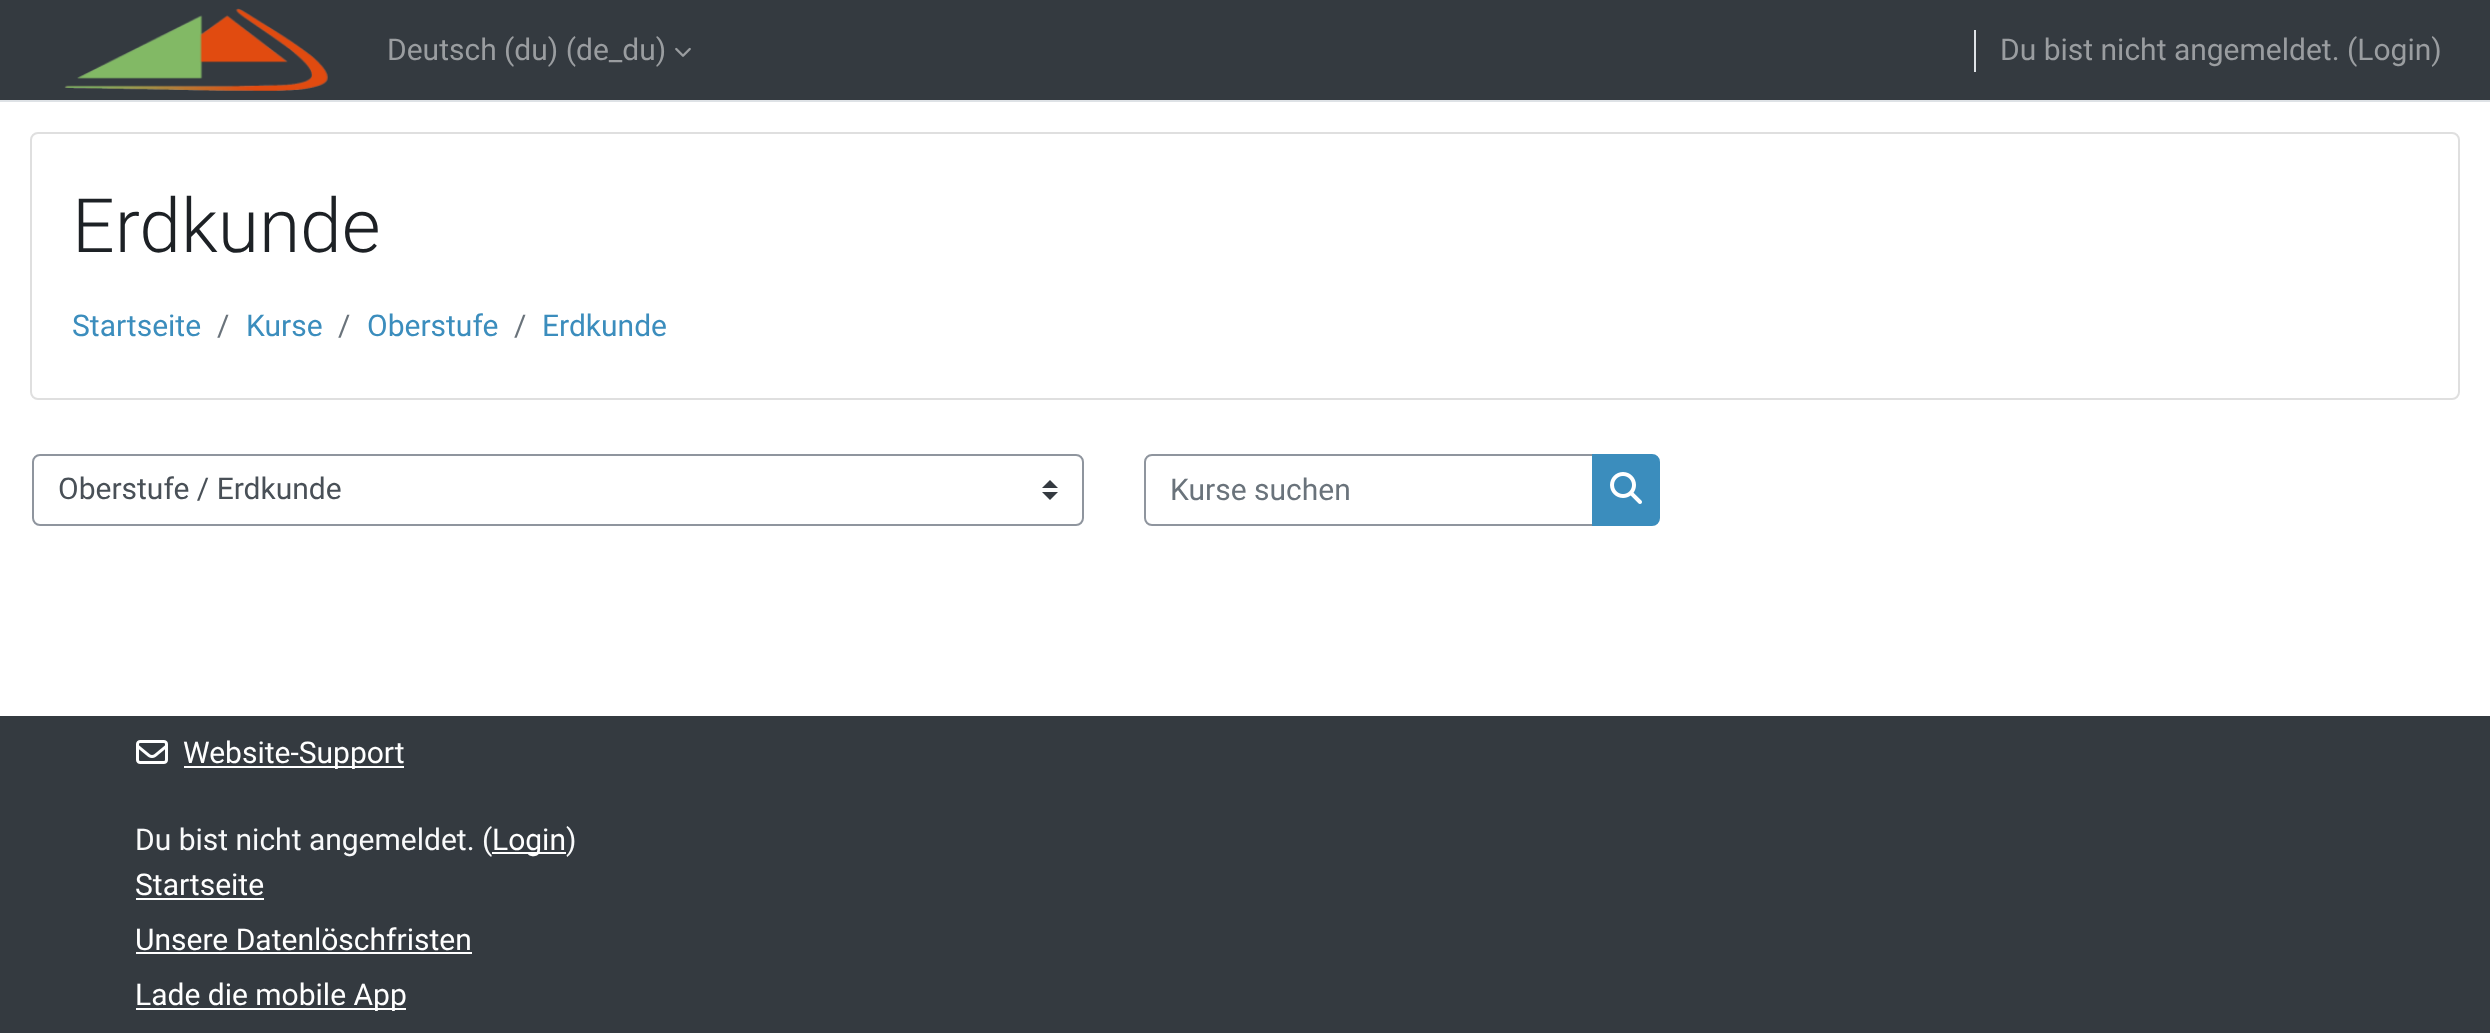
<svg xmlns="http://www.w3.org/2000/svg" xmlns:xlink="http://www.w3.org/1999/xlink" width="2490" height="1033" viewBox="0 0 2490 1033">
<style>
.cls-1{font:30px Roboto;fill:#9a9da0}
.cls-2{font:300 75px Roboto;fill:#1d2125}
.cls-3{font:30px Roboto;fill:#3b8dbd}
.cls-4{font:30px Roboto;fill:#6a737b}
.cls-5{font:30px Roboto;fill:#495057}
.cls-6{font:30px Roboto;fill:#ffffff}
.cls-7{font:30px Roboto;fill:#f8f9fa}
</style>
<rect width="100%" height="100%" fill="#ffffff"/>
<rect fill="#343a40" x="0" y="0" width="2490" height="100"/>
<rect fill="#dee2e6" x="0" y="100" width="2490" height="2"/>
<image xlink:href="image0.png" x="64" y="8" width="264" height="83"/>
<image xlink:href="image1.png" x="675" y="47" width="16" height="10"/>
<rect fill="#dee2e6" x="1974" y="30" width="2" height="42"/>
<rect fill="none" stroke="#dfdfdf" stroke-width="2" x="31" y="133" width="2428" height="266" rx="7"/>
<path fill="#343a40" d="M1050 480L1042 488H1058ZM1050 500L1042 492H1058Z"/>
<rect fill="none" stroke="#8f959e" stroke-width="2" x="33" y="455" width="1050" height="70" rx="7"/>
<path fill="none" stroke="#8f959e" stroke-width="2" d="M1152 455H1593V525H1152C1148 525 1145 522 1145 518V462C1145 458 1148 455 1152 455Z"/>
<path fill="#3b8dbd" stroke="#3b8dbd" stroke-width="2" d="M1593 455H1652C1656 455 1659 458 1659 462V518C1659 522 1656 525 1652 525H1593Z"/>
<image xlink:href="image2.png" x="1610" y="472" width="32" height="32"/>
<rect fill="#343a40" x="0" y="716" width="2490" height="317"/>
<image xlink:href="image3.png" x="136" y="740" width="32" height="24"/>
<rect fill="#ffffff" x="184" y="766" width="220" height="2"/>
<rect fill="#ffffff" x="492" y="852" width="74" height="2"/>
<rect fill="#ffffff" x="136" y="898" width="128" height="2"/>
<rect fill="#ffffff" x="136" y="952" width="336" height="2"/>
<rect fill="#ffffff" x="136" y="1008" width="270" height="2"/>
<text class="cls-1" x="387" y="60">Deutsch (du) (de_du)</text>
<text class="cls-1" x="2000" y="60">Du bist nicht angemeldet. (Login)</text>
<text class="cls-2" x="72" y="252">Erdkunde</text>
<text class="cls-3" x="72" y="336">Startseite</text>
<text class="cls-4" x="217" y="336">/</text>
<text class="cls-3" x="246" y="336">Kurse</text>
<text class="cls-4" x="338" y="336">/</text>
<text class="cls-3" x="367" y="336">Oberstufe</text>
<text class="cls-4" x="514" y="336">/</text>
<text class="cls-3" x="542" y="336">Erdkunde</text>
<text class="cls-5" x="58" y="499">Oberstufe / Erdkunde</text>
<text class="cls-4" x="1170" y="500">Kurse suchen</text>
<text class="cls-6" x="183" y="763">Website-Support</text>
<text class="cls-7" x="135" y="850">Du bist nicht angemeldet. (</text>
<text class="cls-6" x="492" y="850">Login</text>
<text class="cls-7" x="566" y="850">)</text>
<text class="cls-6"><tspan x="135" y="895">Startseite</tspan><tspan x="135" y="950">Unsere Datenlöschfristen</tspan><tspan x="135" y="1005">Lade die mobile App</tspan></text>
</svg>
